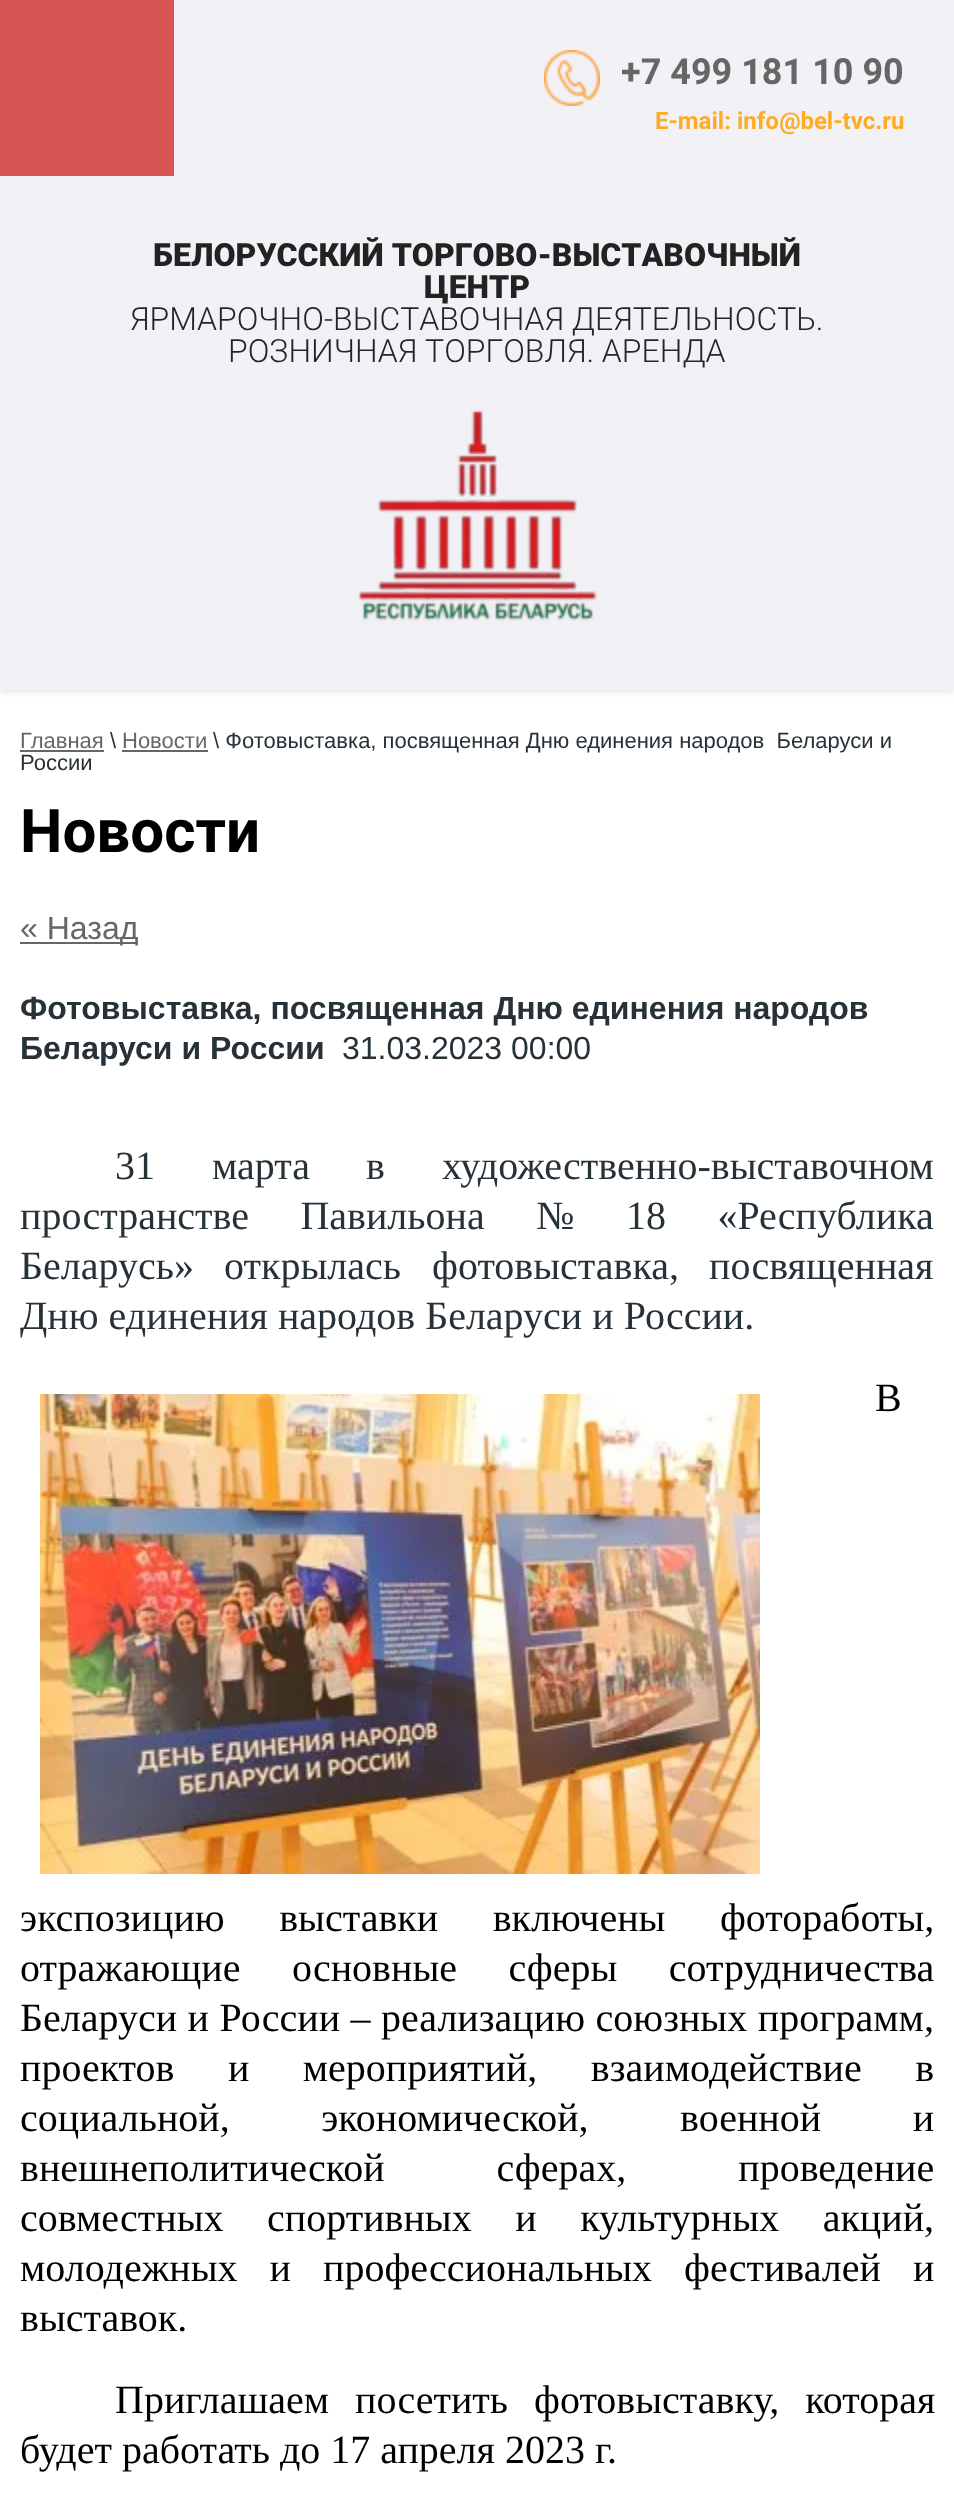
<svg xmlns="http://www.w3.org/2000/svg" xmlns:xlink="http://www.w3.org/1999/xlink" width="954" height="2511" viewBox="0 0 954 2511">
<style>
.cls-1{font:bold 36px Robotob;fill:#666666}
.cls-2{font:bold 24px Robotob;fill:#feab26}
.cls-3{font:900 32px Roboto;fill:#222222}
.cls-4{font:300 32px Roboto;fill:#1f2528}
.cls-5{font:22px Liberation Sans;fill:#666666}
.cls-6{font:22px Liberation Sans;fill:#263238}
.cls-7{font:bold 60px Robotob;fill:#000000}
.cls-8{font:32px Liberation Sans;fill:#666666}
.cls-9{font:bold 32px Liberation Sans;fill:#263238}
.cls-10{font:32px Liberation Sans;fill:#263238}
.cls-11{font:40px Liberation Serif;fill:#263238}
.cls-12{font:40px Liberation Serif;fill:#000000}
</style>
<defs>
<linearGradient id="g1" gradientUnits="userSpaceOnUse" x1="477" y1="688" x2="477" y2="0"><stop offset="0" stop-color="#f0f0f5"/><stop offset="1" stop-color="#f1f1f6"/></linearGradient>
<linearGradient id="g2" gradientUnits="userSpaceOnUse" x1="477" y1="1376" x2="477" y2="688"><stop offset="0" stop-color="#f0f0f5"/><stop offset="1" stop-color="#f1f1f6"/></linearGradient>
</defs>
<rect width="100%" height="100%" fill="#ffffff"/>
<rect fill="#000000" fill-opacity="0.1" filter="blur(3px)" x="0" y="2" width="954" height="690"/>
<rect fill="url(#g1)" x="0" y="0" width="954" height="688"/>
<rect fill="#d75553" x="0" y="0" width="174" height="176"/>
<rect fill="url(#g2)" x="0" y="688" width="954" height="2"/>
<image xlink:href="image0.png" x="544" y="50" width="56" height="56"/>
<image xlink:href="image1.png" x="358" y="410" width="239" height="211"/>
<rect fill="#666666" x="20" y="750" width="84" height="2"/>
<rect fill="#666666" x="122" y="750" width="86" height="2"/>
<rect fill="#666666" x="20" y="942" width="118" height="2"/>
<image xlink:href="image2.png" x="40" y="1394" width="720" height="480"/>
<text class="cls-1" x="621" y="84">+7 499 181 10 90</text>
<text class="cls-2" x="655" y="129">E-mail: info@bel-tvc.ru</text>
<text class="cls-3" x="153" y="266">БЕЛОРУССКИЙ ТОРГОВО-ВЫСТАВОЧНЫЙ</text>
<text class="cls-3" x="424" y="298">ЦЕНТР</text>
<text class="cls-4" x="130" y="330">ЯРМАРОЧНО-ВЫСТАВОЧНАЯ ДЕЯТЕЛЬНОСТЬ.</text>
<text class="cls-4" x="228" y="362">РОЗНИЧНАЯ ТОРГОВЛЯ. АРЕНДА</text>
<text class="cls-5" x="20" y="748">Главная</text>
<text class="cls-6" x="110" y="748">\</text>
<text class="cls-5" x="122" y="748">Новости</text>
<text class="cls-6" xml:space="preserve" x="213" y="748">\ Фотовыставка, посвященная Дню единения народов  Беларуси и</text>
<text class="cls-6" x="20" y="770">России</text>
<text class="cls-7" x="20" y="852">Новости</text>
<text class="cls-8" x="20" y="939">« Назад</text>
<text class="cls-9"><tspan x="20" y="1019">Фотовыставка, посвященная Дню единения народов</tspan><tspan x="20" y="1059">Беларуси и России</tspan></text>
<text class="cls-10" x="342" y="1059">31.03.2023 00:00</text>
<text class="cls-11" x="115" y="1179" word-spacing="47">31 марта</text>
<text class="cls-11" x="366" y="1179" word-spacing="47">в художественно-выставочном</text>
<text class="cls-11"><tspan x="20" y="1229" word-spacing="41.5">пространстве Павильона № 18 «Республика</tspan><tspan x="20" y="1279">Беларусь»</tspan></text>
<text class="cls-11" x="224" y="1279">открылась</text>
<text class="cls-11" x="432" y="1279" word-spacing="20">фотовыставка, посвященная</text>
<text class="cls-11" x="20" y="1329">Дню единения народов Беларуси и России.</text>
<text class="cls-12" x="875" y="1411">В</text>
<text class="cls-12"><tspan x="20" y="1931" word-spacing="44.5">экспозицию выставки включены фотоработы,</tspan><tspan x="20" y="1981" word-spacing="41.5">отражающие основные сферы сотрудничества</tspan><tspan x="20" y="2031" word-spacing="0.5">Беларуси и России – реализацию союзных программ,</tspan><tspan x="20" y="2081" word-spacing="43.5">проектов и мероприятий, взаимодействие в</tspan><tspan x="20" y="2131" word-spacing="81.5">социальной, экономической, военной и</tspan><tspan x="20" y="2181" word-spacing="102">внешнеполитической сферах, проведение</tspan><tspan x="20" y="2231" word-spacing="33.5">совместных спортивных и культурных акций,</tspan><tspan x="20" y="2281" word-spacing="22">молодежных и профессиональных фестивалей и</tspan><tspan x="20" y="2331">выставок.</tspan></text>
<text class="cls-12" x="115" y="2413" word-spacing="16">Приглашаем посетить фотовыставку, которая</text>
<text class="cls-12" x="20" y="2463">будет работать до 17 апреля 2023 г.</text>
</svg>
